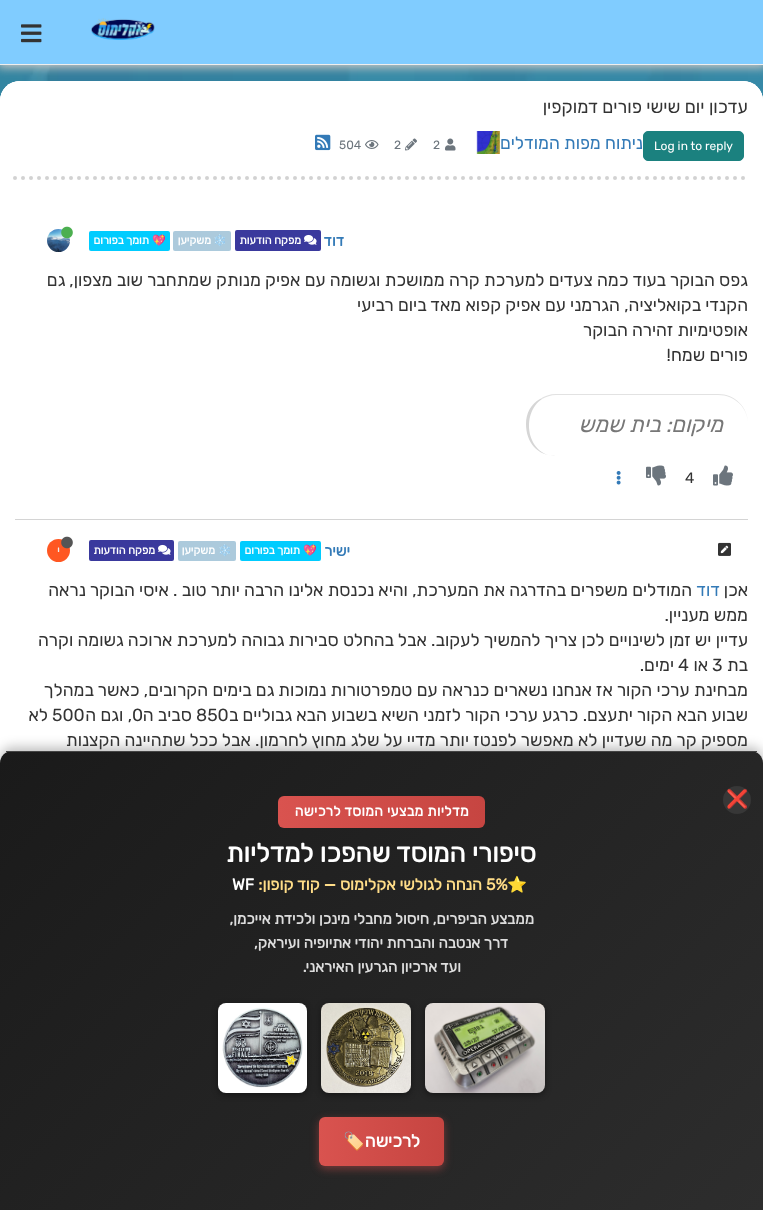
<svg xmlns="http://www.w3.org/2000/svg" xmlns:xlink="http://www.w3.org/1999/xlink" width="763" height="1210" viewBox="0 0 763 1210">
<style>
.cls-1{font:18px Rubik;direction:rtl;fill:#333333}
.cls-2{font:12px Rubik;fill:#ffffff}
.cls-3{font:17.5px Rubik;direction:rtl;fill:#337ab7}
.cls-4{font:12px Rubik;fill:#6c757d}
.cls-5{font:bold 15px Rubik;direction:rtl;fill:#337ab7}
.cls-6{font:bold 11px Rubik;direction:rtl;fill:#ffffff}
.cls-7{font:bold 11px Noto Color Emoji;direction:rtl;fill:#ffffff}
.cls-8{font:17.5px Rubik;direction:rtl;fill:#333333}
.cls-9{font:italic 22px Rubik;direction:rtl;fill:#777777}
.cls-10{font:15px Rubik;fill:#333333}
.cls-11{font:13px Rubik;direction:rtl;fill:#eeeeee}
.cls-12{font:17.5px Rubik;fill:#333333}
.cls-13{font:18px Noto Color Emoji;fill:#eeeeee}
.cls-14{font:bold 14px Rubik;letter-spacing:0.3px;direction:rtl;fill:#ffffff}
.cls-15{font:bold 26px Rubik;direction:rtl;fill:#ffffff}
.cls-16{font:bold 16px Noto Color Emoji;fill:#ffdd88}
.cls-17{font:bold 16px Rubik;fill:#ffdd88}
.cls-18{font:bold 16px Rubik;direction:rtl;fill:#ffdd88}
.cls-19{font:bold 16px Rubik;fill:#ffffff}
.cls-20{font:bold 15px Rubik;direction:rtl;fill:#dddddd}
.cls-21{font:bold 17.5px Rubik;direction:rtl;fill:#ffffff}
.cls-22{font:bold 17.5px Noto Color Emoji;direction:rtl;fill:#ffffff}
</style>
<defs>
<clipPath id="clip1"><path d="M12 751H751C757.5 751 763 756.5 763 763V1210H0V763C0 756.5 5.5 751 12 751Z"/></clipPath>
<linearGradient id="g1" gradientUnits="userSpaceOnUse" x1="76" y1="676" x2="687" y2="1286"><stop offset="0" stop-color="#1a1a1a"/><stop offset="1" stop-color="#2d2d2d"/></linearGradient>
<linearGradient id="g2" gradientUnits="userSpaceOnUse" x1="278" y1="812" x2="485" y2="812"><stop offset="0" stop-color="#d9534f"/><stop offset="1" stop-color="#c64541"/></linearGradient>
<linearGradient id="g3" gradientUnits="userSpaceOnUse" x1="319" y1="1142" x2="444" y2="1142"><stop offset="0" stop-color="#d9534f"/><stop offset="1" stop-color="#c64541"/></linearGradient>
</defs>
<rect width="100%" height="100%" fill="#ffffff"/>
<image xlink:href="image0.png" x="0" y="65" width="763" height="36"/>
<rect fill="#ffffff" x="0" y="81" width="763" height="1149" rx="20"/>
<rect fill="#ffffff" fill-opacity="0.9" x="0" y="81" width="763" height="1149" rx="20"/>
<rect fill="#ffffff" x="0" y="81" width="763" height="99" rx="20"/>
<rect fill="#c3c3c3" filter="blur(5px)" x="-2" y="-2" width="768" height="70"/>
<rect fill="#80ccff" x="0" y="0" width="763" height="64"/>
<rect fill="#eeeeee" x="0" y="64" width="763" height="1"/>
<image xlink:href="image1.png" x="91" y="18" width="64" height="22"/>
<image xlink:href="image2.png" x="21" y="24" width="21" height="19"/>
<path fill="none" stroke="#d2d2d2" stroke-width="4" stroke-linecap="round" stroke-dasharray="0 8" d="M15 178H748"/>
<rect fill="#1b817f" stroke="#1b817f" x="643.5" y="131.5" width="100" height="29" rx="4.5"/>
<image xlink:href="image3.png" x="476" y="131" width="24" height="23"/>
<image xlink:href="image4.png" x="445" y="138" width="11" height="13"/>
<image xlink:href="image5.png" x="405" y="138" width="12" height="13"/>
<image xlink:href="image6.png" x="365" y="140" width="14" height="9"/>
<image xlink:href="image7.png" x="315" y="134" width="16" height="17"/>
<rect fill="#d4d4d4" x="15" y="519" width="733" height="1"/>
<rect fill="#3a399d" x="235" y="230" width="86" height="21" rx="2"/>
<image xlink:href="image8.png" x="304" y="234" width="13" height="11"/>
<rect fill="#accadc" x="173" y="231" width="58" height="20" rx="2"/>
<rect fill="#00ccff" x="89" y="231" width="81" height="20" rx="2"/>
<image xlink:href="image10.png" x="47" y="229" width="23" height="23"/>
<image xlink:href="image9.png" x="61" y="226" width="12" height="13"/>
<path fill="#e2e2e2" d="M556 394C550 394 544 396 540 399H542C546 397 551 395 556 395H718C735 395 748 408 748 424C748 407 735 394 718 394Z"/>
<path fill="#d6d6d6" d="M526 424C526 442 537 456 556 456C527 456 520 414 542 399H540C531 404 526 413 526 424Z"/>
<image xlink:href="image11.png" x="713" y="465" width="20" height="21"/>
<image xlink:href="image12.png" x="646" y="465" width="20" height="21"/>
<image xlink:href="image13.png" x="616" y="471" width="5" height="14"/>
<image xlink:href="image14.png" x="718" y="542" width="13" height="14"/>
<rect fill="#00ccff" x="240" y="541" width="81" height="20" rx="2"/>
<rect fill="#accadc" x="178" y="541" width="58" height="20" rx="2"/>
<rect fill="#3a399d" x="89" y="540" width="85" height="21" rx="2"/>
<image xlink:href="image8.png" x="158" y="544" width="13" height="11"/>
<circle fill="#ff5722" cx="58.5" cy="550.5" r="11.5"/>
<image xlink:href="image15.png" x="61" y="536" width="12" height="13"/>
<rect fill="#000000" fill-opacity="0.25" filter="blur(6px)" x="0" y="747" width="763" height="459" rx="12"/>
<g clip-path="url(#clip1)">
<rect fill="url(#g1)" x="0" y="752" width="763" height="458"/>
</g>
<rect fill="#444444" x="6" y="751" width="751" height="1"/>
<circle fill="#373737" cx="737" cy="800" r="14"/>
<rect fill="url(#g2)" x="278" y="796" width="207" height="32" rx="6"/>
<rect fill="#000000" fill-opacity="0.4" filter="blur(3px)" x="425" y="1005" width="120" height="90" rx="8"/>
<image xlink:href="image16.png" x="425" y="1003" width="120" height="90"/>
<rect fill="#000000" fill-opacity="0.4" filter="blur(3px)" x="321" y="1005" width="90" height="90" rx="8"/>
<image xlink:href="image17.png" x="321" y="1003" width="90" height="90"/>
<rect fill="#000000" fill-opacity="0.4" filter="blur(3px)" x="218" y="1005" width="89" height="90" rx="8"/>
<image xlink:href="image18.png" x="218" y="1003" width="89" height="90"/>
<rect fill="#d9534f" fill-opacity="0.45" filter="blur(4px)" x="319" y="1120" width="125" height="49" rx="6"/>
<rect fill="url(#g3)" x="319" y="1117" width="125" height="49" rx="6"/>
<text class="cls-1" x="748" y="113">עדכון יום שישי פורים דמוקפין</text>
<text class="cls-2" x="654" y="150">Log in to reply</text>
<text class="cls-3" x="643" y="149">ניתוח מפות המודלים</text>
<text class="cls-4" x="433" y="149">2</text>
<text class="cls-4" x="394" y="149">2</text>
<text class="cls-4" x="339" y="149">504</text>
<text class="cls-5" x="344" y="246">דוד</text>
<text class="cls-6" x="301" y="244">מפקח הודעות</text>
<text class="cls-7" x="227" y="244">❄️</text>
<text class="cls-6" x="211" y="244">משקיען</text>
<text class="cls-7" x="166" y="244">💖</text>
<text class="cls-6" x="149" y="244">תומך בפורום</text>
<text class="cls-8"><tspan x="748" y="286">גפס הבוקר בעוד כמה צעדים למערכת קרה ממושכת וגשומה עם אפיק מנותק שמתחבר שוב מצפון, גם</tspan><tspan x="748" y="311">הקנדי בקואליציה, הגרמני עם אפיק קפוא מאד ביום רביעי</tspan><tspan x="748" y="336">אופטימיות זהירה הבוקר</tspan><tspan x="748" y="361">פורים שמח!</tspan></text>
<text class="cls-9" x="723" y="432">מיקום: בית שמש</text>
<text class="cls-10" x="685" y="483">4</text>
<text class="cls-5" x="350" y="556">ישיר</text>
<text class="cls-7" x="317" y="554">💖</text>
<text class="cls-6" x="300" y="554">תומך בפורום</text>
<text class="cls-7" x="232" y="554">❄️</text>
<text class="cls-6" x="215" y="554">משקיען</text>
<text class="cls-6" x="155" y="554">מפקח הודעות</text>
<text class="cls-11" x="60" y="555">י</text>
<text class="cls-8" x="748" y="596">אכן</text>
<text class="cls-3" x="720" y="596">דוד</text>
<text class="cls-8" x="692" y="596">המודלים משפרים בהדרגה את המערכת, והיא נכנסת אלינו הרבה יותר טוב . איסי הבוקר נראה</text>
<text class="cls-8"><tspan x="748" y="621">ממש מעניין.</tspan><tspan x="748" y="646">עדיין יש זמן לשינויים לכן צריך להמשיך לעקוב. אבל בהחלט סבירות גבוהה למערכת ארוכה גשומה וקרה</tspan><tspan x="748" y="671">בת</tspan></text>
<text class="cls-12" x="712" y="671">3</text>
<text class="cls-8" x="708" y="671">או</text>
<text class="cls-12" x="678" y="671">4</text>
<text class="cls-8" x="674" y="671">ימים.</text>
<text class="cls-8"><tspan x="748" y="696">מבחינת ערכי הקור אז אנחנו נשארים כנראה עם טמפרטורות נמוכות גם בימים הקרובים, כאשר במהלך</tspan><tspan x="748" y="721">שבוע הבא הקור יתעצם. כרגע ערכי הקור לזמני השיא בשבוע הבא גבוליים ב</tspan></text>
<text class="cls-12" x="196" y="721">850</text>
<text class="cls-8" x="192" y="721">סביב ה</text>
<text class="cls-12" x="132" y="721">0</text>
<text class="cls-8" x="132" y="721">, וגם ה</text>
<text class="cls-12" x="52" y="721">500</text>
<text class="cls-8" x="48" y="721">לא</text>
<text class="cls-8" x="748" y="746">מספיק קר מה שעדיין לא מאפשר לפנטז יותר מדיי על שלג מחוץ לחרמון. אבל ככל שתהיינה הקצנות</text>
<text class="cls-13" x="726" y="805">❌</text>
<text class="cls-14" x="469" y="816">מדליות מבצעי המוסד לרכישה</text>
<text class="cls-15" x="536" y="862">סיפורי המוסד שהפכו למדליות</text>
<text class="cls-16" x="507" y="890">⭐</text>
<text class="cls-17" x="486" y="890">5%</text>
<text class="cls-18" x="482" y="890">הנחה לגולשי אקלימוס — קוד קופון:</text>
<text class="cls-19" x="232" y="890">WF</text>
<text class="cls-20" x="534" y="924">ממבצע הביפרים, חיסול מחבלי מינכן ולכידת אייכמן,</text>
<text class="cls-20" x="508" y="948">דרך אנטבה והברחת יהודי אתיופיה ועיראק,</text>
<text class="cls-20" x="461" y="972">ועד ארכיון הגרעין האיראני.</text>
<text class="cls-21" x="420" y="1147">לרכישה</text>
<text class="cls-22" x="365" y="1147">🏷️</text>
</svg>
